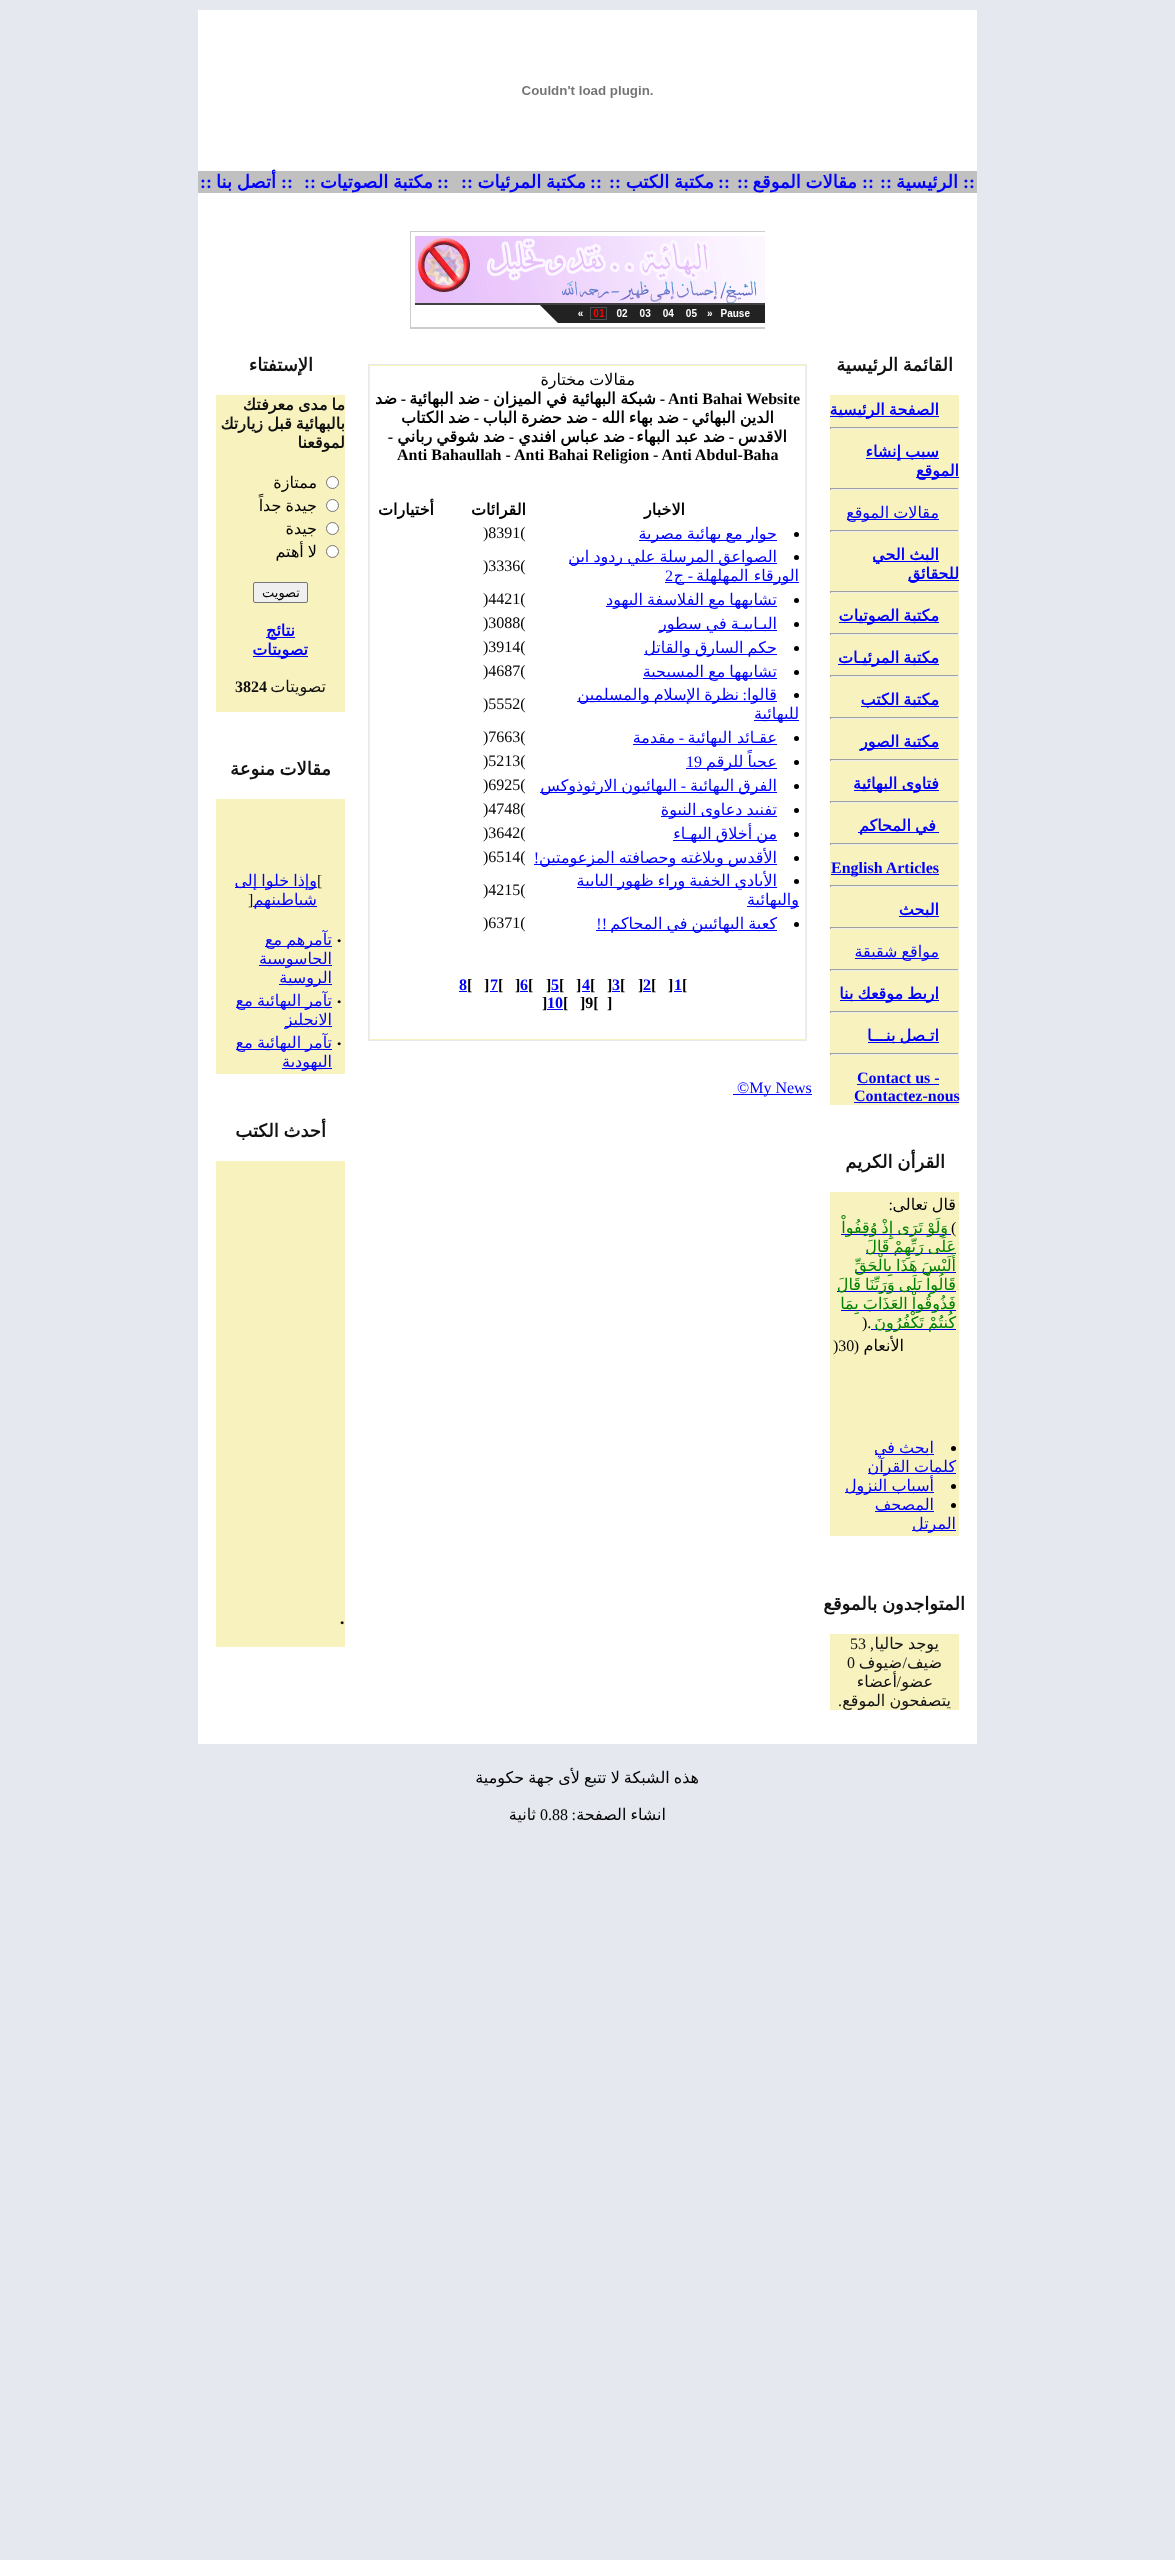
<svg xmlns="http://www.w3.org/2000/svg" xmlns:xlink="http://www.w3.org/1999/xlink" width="1175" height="2560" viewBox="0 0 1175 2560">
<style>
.cls-1{font:bold 18px Liberation Serif;fill:#0000ff}
.cls-2{font:bold 18px DejaVu Sans;direction:rtl;fill:#0000ff}
.cls-3{font:bold 18px DejaVu Sans;direction:rtl;fill:#111111}
.cls-4{font:bold 16px DejaVu Sans;direction:rtl;fill:#0000ff}
.cls-5{font:16px DejaVu Sans;direction:rtl;fill:#0000ff}
.cls-6{font:bold 16px Liberation Serif;fill:#0000ff}
.cls-7{font:16px DejaVu Sans;direction:rtl;fill:#000000}
.cls-8{font:16px Liberation Serif;direction:rtl;fill:#000000}
.cls-9{font:16px Liberation Serif;fill:#000000}
.cls-10{font:16px DejaVu Sans;direction:rtl;fill:#008000}
.cls-11{font:16px DejaVu Sans;direction:rtl;fill:#111111}
.cls-12{font:16px Liberation Serif;direction:rtl;fill:#111111}
.cls-13{font:16px Liberation Serif;fill:#111111}
.cls-14{font:bold 16px Liberation Serif;fill:#000000}
.cls-15{font:bold 16px Liberation Serif;direction:rtl;fill:#000000}
.cls-16{font:bold 16px DejaVu Sans;direction:rtl;fill:#000000}
.cls-17{font:16px Liberation Serif;direction:rtl;fill:#0000ff}
.cls-18{font:16px Liberation Serif;fill:#0000ff}
.cls-19{font:bold 16px DejaVu Sans;direction:rtl;fill:#111111}
.cls-20{font:13px DejaVu Sans;direction:rtl;fill:#000000}
.cls-21{font:bold 16px Liberation Serif;fill:#111111}
.cls-22{font:bold 19px Liberation Serif;fill:#000000}
.cls-23{font:bold 19px Liberation Serif;fill:#111111}
</style>
<rect width="100%" height="100%" fill="#e5e8ee"/>
<rect fill="#ffffff" x="198" y="10" width="779" height="1734"/>
<image xlink:href="image0.png" x="522" y="86" width="131" height="12"/>
<rect fill="#c0c0c0" x="198" y="171" width="779" height="22"/>
<image xlink:href="image1.png" x="410" y="231" width="355" height="98"/>
<rect fill="#f8f2bf" x="830" y="395" width="129" height="710"/>
<rect fill="#0000ff" x="830" y="416" width="109" height="1"/>
<rect fill="#9f9f9f" x="830" y="427" width="129" height="1"/>
<rect fill="#eeeeee" x="958" y="427" width="1" height="2"/>
<rect fill="#eeeeee" x="830" y="428" width="129" height="1"/>
<rect fill="#9f9f9f" x="830" y="427" width="1" height="2"/>
<rect fill="#0000ff" x="866" y="458" width="73" height="1"/>
<rect fill="#0000ff" x="916" y="477" width="43" height="1"/>
<rect fill="#9f9f9f" x="830" y="488" width="129" height="1"/>
<rect fill="#eeeeee" x="958" y="488" width="1" height="2"/>
<rect fill="#eeeeee" x="830" y="489" width="129" height="1"/>
<rect fill="#9f9f9f" x="830" y="488" width="1" height="2"/>
<rect fill="#0000ff" x="847" y="519" width="92" height="1"/>
<rect fill="#9f9f9f" x="830" y="530" width="129" height="1"/>
<rect fill="#eeeeee" x="958" y="530" width="1" height="2"/>
<rect fill="#eeeeee" x="830" y="531" width="129" height="1"/>
<rect fill="#9f9f9f" x="830" y="530" width="1" height="2"/>
<rect fill="#0000ff" x="873" y="561" width="66" height="1"/>
<rect fill="#0000ff" x="908" y="580" width="51" height="1"/>
<rect fill="#9f9f9f" x="830" y="591" width="129" height="1"/>
<rect fill="#eeeeee" x="958" y="591" width="1" height="2"/>
<rect fill="#eeeeee" x="830" y="592" width="129" height="1"/>
<rect fill="#9f9f9f" x="830" y="591" width="1" height="2"/>
<rect fill="#0000ff" x="839" y="622" width="100" height="1"/>
<rect fill="#9f9f9f" x="830" y="633" width="129" height="1"/>
<rect fill="#eeeeee" x="958" y="633" width="1" height="2"/>
<rect fill="#eeeeee" x="830" y="634" width="129" height="1"/>
<rect fill="#9f9f9f" x="830" y="633" width="1" height="2"/>
<rect fill="#0000ff" x="838" y="664" width="101" height="1"/>
<rect fill="#9f9f9f" x="830" y="675" width="129" height="1"/>
<rect fill="#eeeeee" x="958" y="675" width="1" height="2"/>
<rect fill="#eeeeee" x="830" y="676" width="129" height="1"/>
<rect fill="#9f9f9f" x="830" y="675" width="1" height="2"/>
<rect fill="#0000ff" x="861" y="706" width="78" height="1"/>
<rect fill="#9f9f9f" x="830" y="717" width="129" height="1"/>
<rect fill="#eeeeee" x="958" y="717" width="1" height="2"/>
<rect fill="#eeeeee" x="830" y="718" width="129" height="1"/>
<rect fill="#9f9f9f" x="830" y="717" width="1" height="2"/>
<rect fill="#0000ff" x="861" y="748" width="78" height="1"/>
<rect fill="#9f9f9f" x="830" y="759" width="129" height="1"/>
<rect fill="#eeeeee" x="958" y="759" width="1" height="2"/>
<rect fill="#eeeeee" x="830" y="760" width="129" height="1"/>
<rect fill="#9f9f9f" x="830" y="759" width="1" height="2"/>
<rect fill="#0000ff" x="854" y="790" width="85" height="1"/>
<rect fill="#9f9f9f" x="830" y="801" width="129" height="1"/>
<rect fill="#eeeeee" x="958" y="801" width="1" height="2"/>
<rect fill="#eeeeee" x="830" y="802" width="129" height="1"/>
<rect fill="#9f9f9f" x="830" y="801" width="1" height="2"/>
<rect fill="#0000ff" x="858" y="832" width="81" height="1"/>
<rect fill="#9f9f9f" x="830" y="843" width="129" height="1"/>
<rect fill="#eeeeee" x="958" y="843" width="1" height="2"/>
<rect fill="#eeeeee" x="830" y="844" width="129" height="1"/>
<rect fill="#9f9f9f" x="830" y="843" width="1" height="2"/>
<rect fill="#0000ff" x="831" y="874" width="108" height="1"/>
<rect fill="#9f9f9f" x="830" y="885" width="129" height="1"/>
<rect fill="#eeeeee" x="958" y="885" width="1" height="2"/>
<rect fill="#eeeeee" x="830" y="886" width="129" height="1"/>
<rect fill="#9f9f9f" x="830" y="885" width="1" height="2"/>
<rect fill="#0000ff" x="899" y="916" width="40" height="1"/>
<rect fill="#9f9f9f" x="830" y="927" width="129" height="1"/>
<rect fill="#eeeeee" x="958" y="927" width="1" height="2"/>
<rect fill="#eeeeee" x="830" y="928" width="129" height="1"/>
<rect fill="#9f9f9f" x="830" y="927" width="1" height="2"/>
<rect fill="#0000ff" x="855" y="958" width="84" height="1"/>
<rect fill="#9f9f9f" x="830" y="969" width="129" height="1"/>
<rect fill="#eeeeee" x="958" y="969" width="1" height="2"/>
<rect fill="#eeeeee" x="830" y="970" width="129" height="1"/>
<rect fill="#9f9f9f" x="830" y="969" width="1" height="2"/>
<rect fill="#0000ff" x="840" y="1000" width="99" height="1"/>
<rect fill="#9f9f9f" x="830" y="1011" width="129" height="1"/>
<rect fill="#eeeeee" x="958" y="1011" width="1" height="2"/>
<rect fill="#eeeeee" x="830" y="1012" width="129" height="1"/>
<rect fill="#9f9f9f" x="830" y="1011" width="1" height="2"/>
<rect fill="#0000ff" x="868" y="1042" width="71" height="1"/>
<rect fill="#9f9f9f" x="830" y="1053" width="129" height="1"/>
<rect fill="#eeeeee" x="958" y="1053" width="1" height="2"/>
<rect fill="#eeeeee" x="830" y="1054" width="129" height="1"/>
<rect fill="#9f9f9f" x="830" y="1053" width="1" height="2"/>
<rect fill="#0000ff" x="857" y="1084" width="82" height="1"/>
<rect fill="#0000ff" x="854" y="1102" width="105" height="1"/>
<rect fill="#f8f2bf" x="830" y="1192" width="129" height="344"/>
<rect fill="#0000ff" x="841" y="1234" width="110" height="1"/>
<rect fill="#0000ff" x="866" y="1253" width="90" height="1"/>
<rect fill="#0000ff" x="855" y="1272" width="101" height="1"/>
<rect fill="#0000ff" x="837" y="1291" width="119" height="1"/>
<rect fill="#0000ff" x="841" y="1310" width="115" height="1"/>
<rect fill="#0000ff" x="871" y="1329" width="85" height="1"/>
<circle fill="#000000" cx="953.5" cy="1448.5" r="2.5"/>
<rect fill="#0000ff" x="875" y="1454" width="59" height="1"/>
<rect fill="#0000ff" x="868" y="1473" width="88" height="1"/>
<circle fill="#000000" cx="953.5" cy="1486.5" r="2.5"/>
<rect fill="#0000ff" x="845" y="1492" width="89" height="1"/>
<circle fill="#000000" cx="953.5" cy="1505.5" r="2.5"/>
<rect fill="#0000ff" x="875" y="1511" width="59" height="1"/>
<rect fill="#0000ff" x="912" y="1530" width="44" height="1"/>
<rect fill="#f8f2bf" x="830" y="1634" width="129" height="76"/>
<rect fill="#e9e9e8" x="368" y="364" width="439" height="677"/>
<rect fill="#f8f2bf" x="369" y="365" width="437" height="675"/>
<rect fill="#ffffff" x="370" y="366" width="435" height="673"/>
<circle fill="#000000" cx="796.5" cy="534.5" r="2.5"/>
<rect fill="#0000ff" x="639" y="540" width="138" height="1"/>
<circle fill="#000000" cx="796.5" cy="557.5" r="2.5"/>
<rect fill="#0000ff" x="569" y="563" width="208" height="1"/>
<rect fill="#0000ff" x="665" y="582" width="134" height="1"/>
<circle fill="#000000" cx="796.5" cy="600.5" r="2.5"/>
<rect fill="#0000ff" x="606" y="606" width="171" height="1"/>
<circle fill="#000000" cx="796.5" cy="624.5" r="2.5"/>
<rect fill="#0000ff" x="659" y="630" width="118" height="1"/>
<circle fill="#000000" cx="796.5" cy="648.5" r="2.5"/>
<rect fill="#0000ff" x="644" y="654" width="133" height="1"/>
<circle fill="#000000" cx="796.5" cy="672.5" r="2.5"/>
<rect fill="#0000ff" x="643" y="678" width="134" height="1"/>
<circle fill="#000000" cx="796.5" cy="695.5" r="2.5"/>
<rect fill="#0000ff" x="577" y="701" width="200" height="1"/>
<rect fill="#0000ff" x="754" y="720" width="45" height="1"/>
<circle fill="#000000" cx="796.5" cy="738.5" r="2.5"/>
<rect fill="#0000ff" x="633" y="744" width="144" height="1"/>
<circle fill="#000000" cx="796.5" cy="762.5" r="2.5"/>
<rect fill="#0000ff" x="686" y="768" width="91" height="1"/>
<circle fill="#000000" cx="796.5" cy="786.5" r="2.5"/>
<rect fill="#0000ff" x="540" y="792" width="237" height="1"/>
<circle fill="#000000" cx="796.5" cy="810.5" r="2.5"/>
<rect fill="#0000ff" x="661" y="816" width="116" height="1"/>
<circle fill="#000000" cx="796.5" cy="834.5" r="2.5"/>
<rect fill="#0000ff" x="673" y="840" width="104" height="1"/>
<circle fill="#000000" cx="796.5" cy="858.5" r="2.5"/>
<rect fill="#0000ff" x="534" y="864" width="243" height="1"/>
<circle fill="#000000" cx="796.5" cy="881.5" r="2.5"/>
<rect fill="#0000ff" x="577" y="887" width="200" height="1"/>
<rect fill="#0000ff" x="747" y="906" width="52" height="1"/>
<circle fill="#000000" cx="796.5" cy="924.5" r="2.5"/>
<rect fill="#0000ff" x="596" y="930" width="181" height="1"/>
<rect fill="#0000ff" x="674" y="991" width="8" height="1"/>
<rect fill="#0000ff" x="643" y="991" width="8" height="1"/>
<rect fill="#0000ff" x="612" y="991" width="8" height="1"/>
<rect fill="#0000ff" x="582" y="991" width="8" height="1"/>
<rect fill="#0000ff" x="551" y="991" width="8" height="1"/>
<rect fill="#0000ff" x="520" y="991" width="8" height="1"/>
<rect fill="#0000ff" x="490" y="991" width="8" height="1"/>
<rect fill="#0000ff" x="459" y="991" width="8" height="1"/>
<rect fill="#0000ff" x="547" y="1009" width="16" height="1"/>
<rect fill="#0000ff" x="733" y="1094" width="79" height="1"/>
<rect fill="#f8f2bf" x="216" y="395" width="129" height="317"/>
<circle fill="#ffffff" stroke="#767676" cx="332.5" cy="482.5" r="6"/>
<circle fill="#ffffff" stroke="#767676" cx="332.5" cy="505.5" r="6"/>
<circle fill="#ffffff" stroke="#767676" cx="332.5" cy="528.5" r="6"/>
<circle fill="#ffffff" stroke="#767676" cx="332.5" cy="551.5" r="6"/>
<rect fill="#efefef" stroke="#767676" x="253.5" y="582.5" width="54" height="20" rx="1.5"/>
<rect fill="#0000ff" x="266" y="637" width="29" height="1"/>
<rect fill="#0000ff" x="253" y="656" width="55" height="1"/>
<rect fill="#f8f2bf" x="216" y="799" width="129" height="275"/>
<rect fill="#0000ff" x="235" y="887" width="82" height="1"/>
<rect fill="#0000ff" x="253" y="906" width="64" height="1"/>
<rect fill="#0000ff" x="265" y="946" width="67" height="1"/>
<rect fill="#0000ff" x="259" y="965" width="73" height="1"/>
<rect fill="#0000ff" x="279" y="984" width="53" height="1"/>
<rect fill="#0000ff" x="236" y="1007" width="96" height="1"/>
<rect fill="#0000ff" x="285" y="1026" width="47" height="1"/>
<rect fill="#0000ff" x="236" y="1049" width="96" height="1"/>
<rect fill="#0000ff" x="282" y="1068" width="50" height="1"/>
<rect fill="#f8f2bf" x="216" y="1161" width="129" height="486"/>
<text class="cls-1" x="963" y="188">::</text>
<text class="cls-2" x="958" y="188">الرئيسية</text>
<text class="cls-1" x="880" y="188">::</text>
<text class="cls-1" x="862" y="188">::</text>
<text class="cls-2" x="857" y="188" word-spacing="-1">مقالات الموقع</text>
<text class="cls-1" x="737" y="188">::</text>
<text class="cls-1" x="718" y="188">::</text>
<text class="cls-2" x="714" y="188" word-spacing="-1">مكتبة الكتب</text>
<text class="cls-1" x="609" y="188">::</text>
<text class="cls-1" x="590" y="188">::</text>
<text class="cls-2" x="586" y="188" word-spacing="-1">مكتبة المرئيات</text>
<text class="cls-1" x="461" y="188">::</text>
<text class="cls-1" x="437" y="188">::</text>
<text class="cls-2" x="433" y="188" word-spacing="-1">مكتبة الصوتيات</text>
<text class="cls-1" x="304" y="188">::</text>
<text class="cls-1" x="281" y="188">::</text>
<text class="cls-2" x="276" y="188" word-spacing="-1">أتصل بنا</text>
<text class="cls-1" x="200" y="188">::</text>
<text class="cls-3" x="953" y="371" word-spacing="-1">القائمة الرئيسية</text>
<text class="cls-4" x="939" y="415" word-spacing="-1">الصفحة الرئيسية</text>
<text class="cls-4" x="939" y="457" word-spacing="-1">سبب إنشاء</text>
<text class="cls-4" x="959" y="476">الموقع</text>
<text class="cls-5" x="939" y="518" word-spacing="-1">مقالات الموقع</text>
<text class="cls-4" x="939" y="560" word-spacing="-1">البث الحي</text>
<text class="cls-4" x="959" y="579">للحقائق</text>
<text class="cls-4" x="939" y="621" word-spacing="-1">مكتبة الصوتيات</text>
<text class="cls-4" x="939" y="663" word-spacing="-1">مكتبة المرئيـات</text>
<text class="cls-4" x="939" y="705" word-spacing="-1">مكتبة الكتب</text>
<text class="cls-4" x="939" y="747" word-spacing="-1">مكتبة الصور</text>
<text class="cls-4" x="939" y="789" word-spacing="-1">فتاوى البهائية</text>
<text class="cls-4" x="936" y="831" word-spacing="-1">في المحاكم</text>
<text class="cls-6" x="831" y="873">English Articles</text>
<text class="cls-4" x="939" y="915">البحث</text>
<text class="cls-5" x="939" y="957" word-spacing="-1">مواقع شقيقة</text>
<text class="cls-4" x="939" y="999" word-spacing="-1">اربط موقعك بنا</text>
<text class="cls-4" x="939" y="1041" word-spacing="-1">اتـصل بنـــا</text>
<text class="cls-6" x="857" y="1083">Contact us -</text>
<text class="cls-6" x="854" y="1101">Contactez-nous</text>
<text class="cls-3" x="945" y="1168" word-spacing="-1">القرأن الكريم</text>
<text class="cls-7" x="956" y="1210" word-spacing="-1">قال تعالى</text>
<text class="cls-8" x="893" y="1210">:</text>
<text class="cls-9" x="951" y="1233">(</text>
<text class="cls-10" x="948" y="1233" word-spacing="-1">وَلَوْ تَرَى إِذْ وُقِفُواْ</text>
<text class="cls-10"><tspan x="956" y="1252" word-spacing="-1">عَلَى رَبِّهِمْ قَالَ</tspan><tspan x="956" y="1271" word-spacing="-1">أَلَيْسَ هَذَا بِالْحَقِّ</tspan><tspan x="956" y="1290" word-spacing="-1">قَالُواْ بَلَى وَرَبِّنَا قَالَ</tspan><tspan x="956" y="1309" word-spacing="-1">فَذُوقُواْ العَذَابَ بِمَا</tspan><tspan x="956" y="1328" word-spacing="-1">كُنتُمْ تَكْفُرُونَ</tspan></text>
<text class="cls-9" x="862" y="1328">).</text>
<text class="cls-7" x="904" y="1351">الأنعام</text>
<text class="cls-8" x="859" y="1351">(</text>
<text class="cls-9" x="833" y="1351">)30</text>
<text class="cls-5" x="934" y="1453" word-spacing="-1">ابحث في</text>
<text class="cls-5" x="956" y="1472" word-spacing="-1">كلمات القرآن</text>
<text class="cls-5"><tspan x="934" y="1491" word-spacing="-1">أسباب النزول</tspan><tspan x="934" y="1510">المصحف</tspan></text>
<text class="cls-5" x="956" y="1529">المرتل</text>
<text class="cls-3" x="965" y="1610" word-spacing="-1">المتواجدون بالموقع</text>
<text class="cls-11" x="939" y="1649" word-spacing="-1">يوجد حاليا</text>
<text class="cls-12" x="874" y="1649">,</text>
<text class="cls-13" x="850" y="1649">53</text>
<text class="cls-11" x="942" y="1668">ضيف</text>
<text class="cls-12" x="907" y="1668">/</text>
<text class="cls-11" x="902" y="1668">ضيوف</text>
<text class="cls-13" x="847" y="1668">0</text>
<text class="cls-12" x="901" y="1687">/</text>
<text class="cls-11" x="933" y="1687">عضو</text>
<text class="cls-11" x="897" y="1687">أعضاء</text>
<text class="cls-11" x="951" y="1706" word-spacing="-1">يتصفحون الموقع</text>
<text class="cls-12" x="842" y="1706">.</text>
<text class="cls-7" x="635" y="385" word-spacing="-1">مقالات مختارة</text>
<text class="cls-14" x="668" y="404">Anti Bahai Website</text>
<text class="cls-15" x="665" y="404">-</text>
<text class="cls-16" x="656" y="404" word-spacing="-0.5">شبكة البهائية في الميزان</text>
<text class="cls-15" x="489" y="404">-</text>
<text class="cls-16" x="480" y="404" word-spacing="-0.5">ضد البهائية</text>
<text class="cls-15" x="406" y="404">-</text>
<text class="cls-16" x="397" y="404">ضد</text>
<text class="cls-16" x="774" y="423" word-spacing="-1">الدين البهائي</text>
<text class="cls-15" x="688" y="423">-</text>
<text class="cls-16" x="679" y="423" word-spacing="-1">ضد بهاء الله</text>
<text class="cls-15" x="597" y="423">-</text>
<text class="cls-16" x="588" y="423" word-spacing="-1">ضد حضرة الباب</text>
<text class="cls-15" x="479" y="423">-</text>
<text class="cls-16" x="470" y="423" word-spacing="-1">ضد الكتاب</text>
<text class="cls-16" x="787" y="442">الاقدس</text>
<text class="cls-15" x="734" y="442">-</text>
<text class="cls-16" x="725" y="442">ضد عبد البهاء</text>
<text class="cls-15" x="634" y="442">-</text>
<text class="cls-16" x="625" y="442" word-spacing="-1">ضد عباس افندي</text>
<text class="cls-15" x="514" y="442">-</text>
<text class="cls-16" x="505" y="442" word-spacing="-1">ضد شوقي رباني</text>
<text class="cls-15" x="393" y="442">-</text>
<text class="cls-14" x="397" y="460">Anti Bahaullah - Anti Bahai Religion - Anti Abdul-Baha</text>
<text class="cls-16" x="685" y="515">الاخبار</text>
<text class="cls-16" x="526" y="515">القرائات</text>
<text class="cls-16" x="434" y="515">أختيارات</text>
<text class="cls-5" x="777" y="539" word-spacing="-1">حوار مع بهائية مصرية</text>
<text class="cls-9" x="483" y="538">)8391(</text>
<text class="cls-5" x="777" y="562" word-spacing="-1">الصواعق المرسلة علي ردود ابن</text>
<text class="cls-5" x="799" y="581">الورقاء المهلهلة</text>
<text class="cls-17" x="693" y="581">-</text>
<text class="cls-5" x="684" y="581">ج</text>
<text class="cls-18" x="665" y="581">2</text>
<text class="cls-9" x="483" y="571">)3336(</text>
<text class="cls-5" x="777" y="605" word-spacing="-1">تشابهها مع الفلاسفة اليهود</text>
<text class="cls-9" x="483" y="604">)4421(</text>
<text class="cls-5" x="777" y="629" word-spacing="-1">البـابيـة في سطور</text>
<text class="cls-9" x="483" y="628">)3088(</text>
<text class="cls-5" x="777" y="653" word-spacing="-1">حكم السارق والقاتل</text>
<text class="cls-9" x="483" y="652">)3914(</text>
<text class="cls-5" x="777" y="677" word-spacing="-1">تشابهها مع المسيحية</text>
<text class="cls-9" x="483" y="676">)4687(</text>
<text class="cls-5" x="777" y="700">قالوا</text>
<text class="cls-17" x="747" y="700">:</text>
<text class="cls-5" x="739" y="700" word-spacing="-1">نظرة الإسلام والمسلمين</text>
<text class="cls-5" x="799" y="719">للبهائية</text>
<text class="cls-9" x="483" y="709">)5552(</text>
<text class="cls-5" x="777" y="743">عقـائد البهائية</text>
<text class="cls-17" x="684" y="743">-</text>
<text class="cls-5" x="675" y="743">مقدمة</text>
<text class="cls-9" x="483" y="742">)7663(</text>
<text class="cls-5" x="777" y="767" word-spacing="-1">عجباً للرقم</text>
<text class="cls-18" x="686" y="767">19</text>
<text class="cls-9" x="483" y="766">)5213(</text>
<text class="cls-5" x="777" y="791" word-spacing="-1">الفرق البهائية</text>
<text class="cls-17" x="686" y="791">-</text>
<text class="cls-5" x="677" y="791" word-spacing="-1">البهائيون الارثوذوكس</text>
<text class="cls-9" x="483" y="790">)6925(</text>
<text class="cls-5" x="777" y="815" word-spacing="-1">تفنيد دعاوى النبوة</text>
<text class="cls-9" x="483" y="814">)4748(</text>
<text class="cls-5" x="777" y="839" word-spacing="-1">من أخلاق البهـاء</text>
<text class="cls-9" x="483" y="838">)3642(</text>
<text class="cls-5" x="777" y="863" word-spacing="-1">الأقدس وبلاغته وحصافته المزعومتين</text>
<text class="cls-17" x="539" y="863">!</text>
<text class="cls-9" x="483" y="862">)6514(</text>
<text class="cls-5" x="777" y="886" word-spacing="-1">الأيادي الخفية وراء ظهور البابية</text>
<text class="cls-5" x="799" y="905">والبهائية</text>
<text class="cls-9" x="483" y="895">)4215(</text>
<text class="cls-5" x="777" y="929" word-spacing="-1">كعبة البهائيين في المحاكم</text>
<text class="cls-17" x="607" y="929">!!</text>
<text class="cls-9" x="483" y="928">)6371(</text>
<text class="cls-14" x="682" y="990">[</text>
<text class="cls-6" x="674" y="990">1</text>
<text class="cls-14" x="668" y="990">]</text>
<text class="cls-14" x="651" y="990">[</text>
<text class="cls-6" x="643" y="990">2</text>
<text class="cls-14" x="638" y="990">]</text>
<text class="cls-14" x="620" y="990">[</text>
<text class="cls-6" x="612" y="990">3</text>
<text class="cls-14" x="607" y="990">]</text>
<text class="cls-14" x="590" y="990">[</text>
<text class="cls-6" x="582" y="990">4</text>
<text class="cls-14" x="576" y="990">]</text>
<text class="cls-14" x="559" y="990">[</text>
<text class="cls-6" x="551" y="990">5</text>
<text class="cls-14" x="546" y="990">]</text>
<text class="cls-14" x="528" y="990">[</text>
<text class="cls-6" x="520" y="990">6</text>
<text class="cls-14" x="515" y="990">]</text>
<text class="cls-14" x="498" y="990">[</text>
<text class="cls-6" x="490" y="990">7</text>
<text class="cls-14" x="484" y="990">]</text>
<text class="cls-14" x="467" y="990">[</text>
<text class="cls-6" x="459" y="990">8</text>
<text class="cls-14" x="607" y="1008">]</text>
<text class="cls-14" x="580" y="1008">]9[</text>
<text class="cls-14" x="563" y="1008">[</text>
<text class="cls-6" x="547" y="1008">10</text>
<text class="cls-14" x="542" y="1008">]</text>
<text class="cls-18" x="737" y="1093">©My News</text>
<text class="cls-3" x="313" y="371">الإستفتاء</text>
<text class="cls-19"><tspan x="345" y="410" word-spacing="-1">ما مدى معرفتك</tspan><tspan x="345" y="429" word-spacing="-1">بالبهائية قبل زيارتك</tspan><tspan x="345" y="448">لموقعنا</tspan></text>
<text class="cls-7"><tspan x="317" y="488">ممتازة</tspan><tspan x="317" y="511" word-spacing="-1">جيدة جداً</tspan><tspan x="317" y="534">جيدة</tspan><tspan x="317" y="557" word-spacing="-1">لا أهتم</tspan></text>
<text class="cls-20" x="300" y="597">تصويت</text>
<text class="cls-4" x="295" y="636">نتائج</text>
<text class="cls-4" x="308" y="655">تصويتات</text>
<text class="cls-11" x="326" y="692">تصويتات</text>
<text class="cls-21" x="235" y="692">3824</text>
<text class="cls-3" x="331" y="775" word-spacing="-1">مقالات منوعة</text>
<text class="cls-13" x="317" y="886">[</text>
<text class="cls-5"><tspan x="317" y="886" word-spacing="-1">وإذا خلوا إلى</tspan><tspan x="317" y="905">شياطينهم</tspan></text>
<text class="cls-13" x="248" y="905">]</text>
<text class="cls-22" x="336" y="947">·</text>
<text class="cls-5"><tspan x="332" y="945" word-spacing="-1">تآمرهم مع</tspan><tspan x="332" y="964">الجاسوسية</tspan><tspan x="332" y="983">الروسية</tspan></text>
<text class="cls-22" x="336" y="1008">·</text>
<text class="cls-5"><tspan x="332" y="1006" word-spacing="-1">تآمر البهائية مع</tspan><tspan x="332" y="1025">الانجليز</tspan></text>
<text class="cls-22" x="336" y="1050">·</text>
<text class="cls-5"><tspan x="332" y="1048" word-spacing="-1">تآمر البهائية مع</tspan><tspan x="332" y="1067">اليهودية</tspan></text>
<text class="cls-3" x="326" y="1137" word-spacing="-1">أحدث الكتب</text>
<text class="cls-23" x="339" y="1629">·</text>
<text class="cls-7" x="699" y="1783" word-spacing="-1">هذه الشبكة لا تتبع لأى جهة حكومية</text>
<text class="cls-7" x="666" y="1820" word-spacing="-1">انشاء الصفحة</text>
<text class="cls-8" x="576" y="1820">:</text>
<text class="cls-9" x="540" y="1820">0.88</text>
<text class="cls-7" x="536" y="1820">ثانية</text>
</svg>
